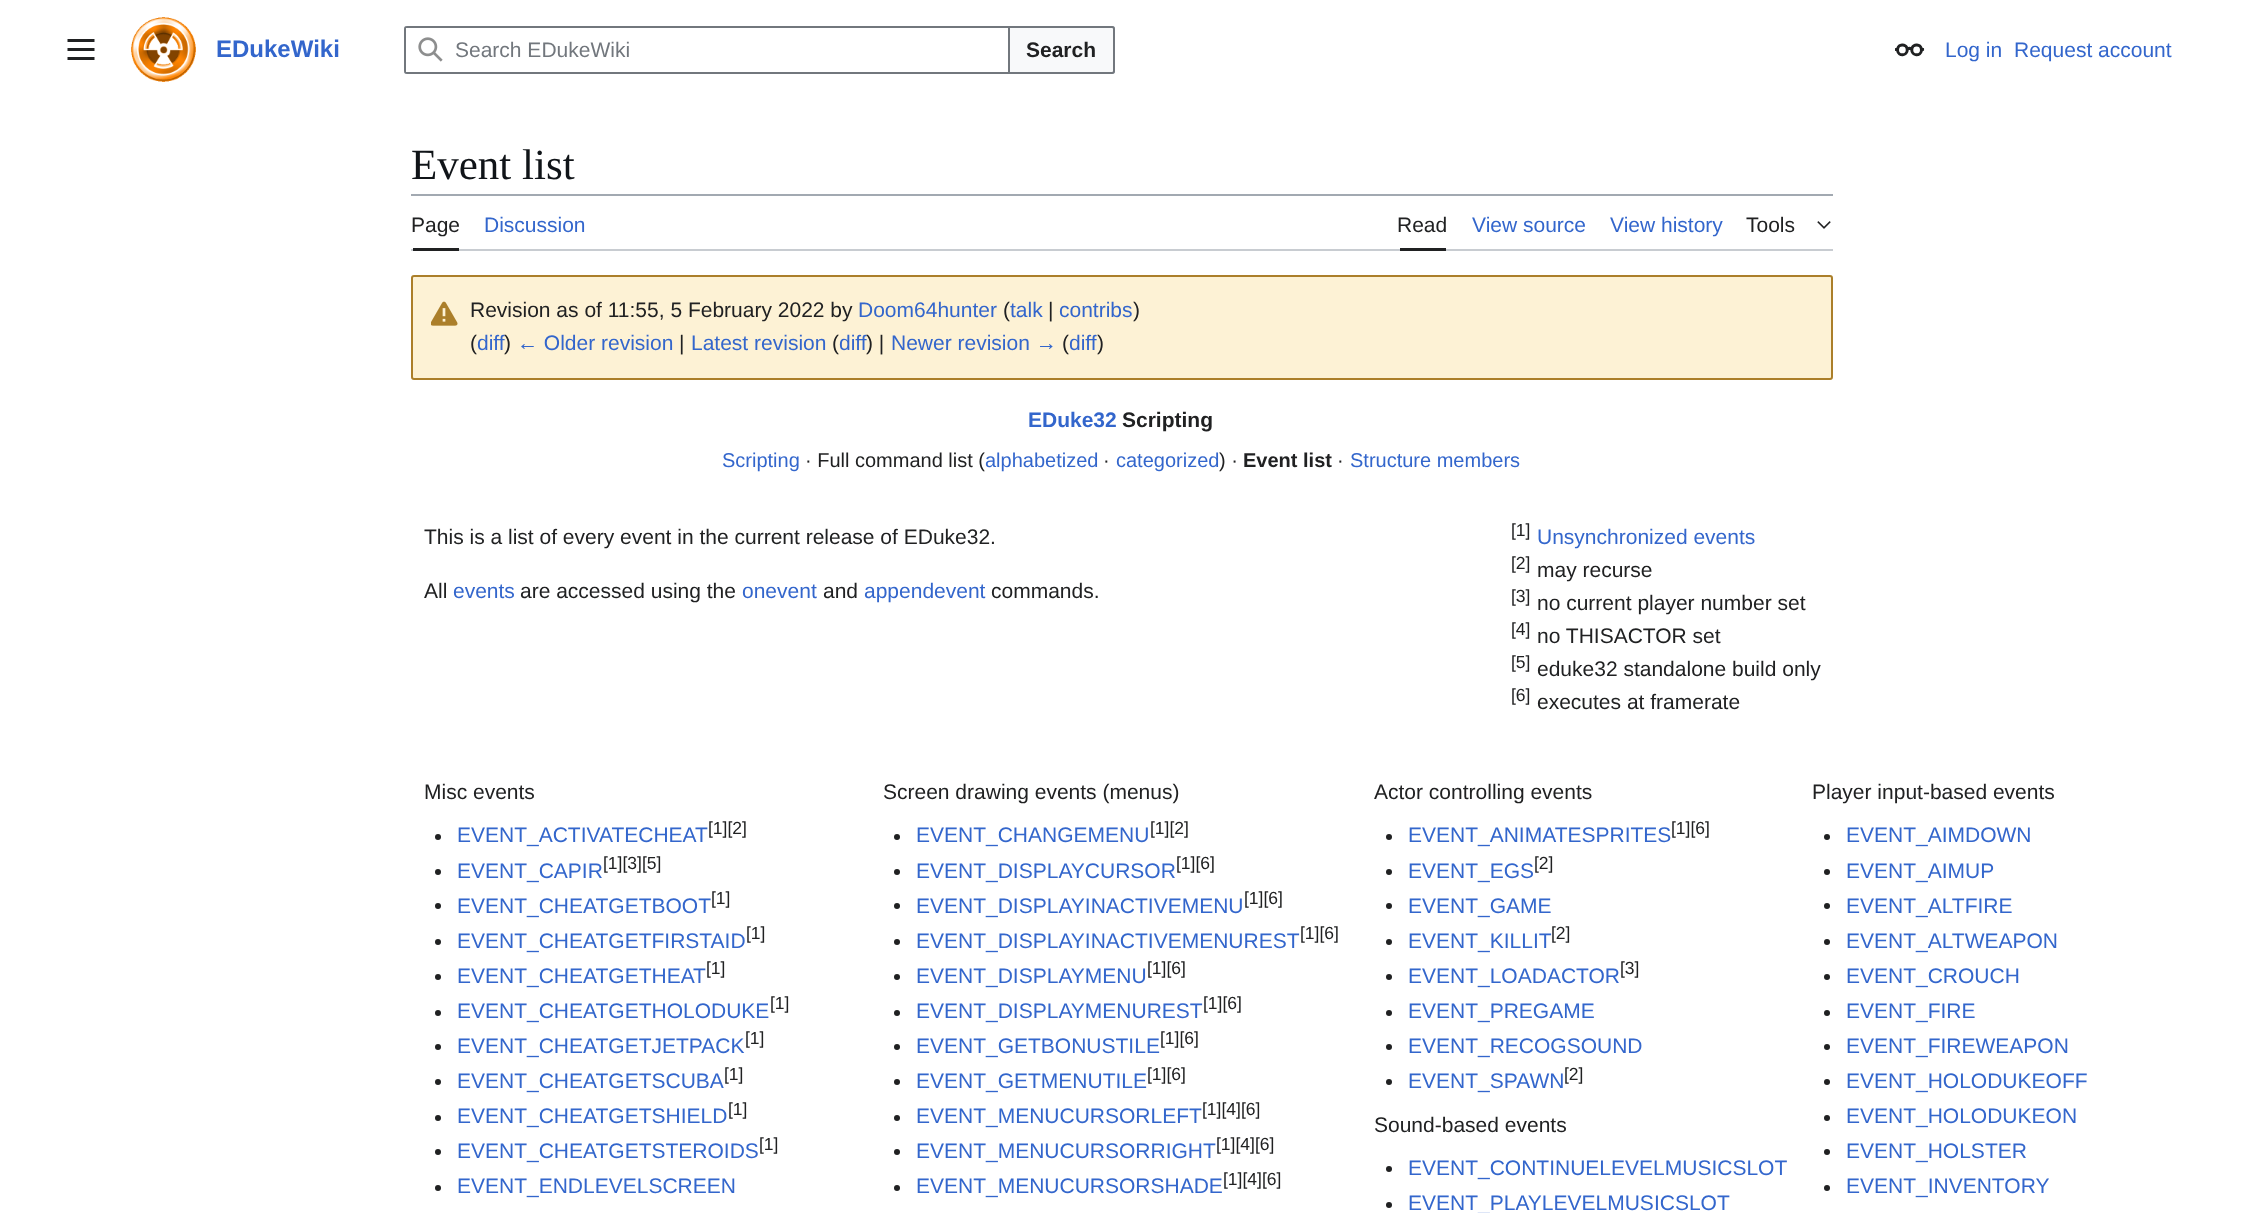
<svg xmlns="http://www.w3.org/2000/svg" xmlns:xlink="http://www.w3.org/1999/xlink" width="2243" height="1213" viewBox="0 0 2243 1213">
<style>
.cls-1{font:bold 24px Liberation Sans;fill:#3366cc}
.cls-2{font:21px Liberation Sans;fill:#72777d}
.cls-3{font:bold 21px Liberation Sans;fill:#202122}
.cls-4{font:21px Liberation Sans;fill:#3366cc}
.cls-5{font:43px Liberation Serif;fill:#101418}
.cls-6{font:21px Liberation Sans;fill:#202122}
.cls-7{font:bold 21px Liberation Sans;fill:#3366cc}
.cls-8{font:20px Liberation Sans;fill:#3366cc}
.cls-9{font:20px Liberation Sans;fill:#202122}
.cls-10{font:bold 20px Liberation Sans;fill:#202122}
.cls-11{font:17.5px Liberation Sans;fill:#202122}
</style>
<rect width="100%" height="100%" fill="#ffffff"/>
<image xlink:href="image0.png" x="67" y="39" width="28" height="21"/>
<image xlink:href="image1.png" x="131" y="17" width="65" height="65"/>
<rect fill="none" stroke="#a2a9b1" stroke-width="2" x="405" y="27" width="709" height="46" rx="2"/>
<path fill="#f8f9fa" stroke="#72777d" stroke-width="2" d="M1009 27H1112C1113 27 1114 28 1114 29V71C1114 72 1113 73 1112 73H1009Z"/>
<path fill="#ffffff" d="M407 26H1010V74H407C405.5 74 404 72.5 404 71V29C404 27.5 405.5 26 407 26Z"/>
<path fill="#72777d" fill-rule="evenodd" d="M407 26C405 26 404 27 404 29V71C404 73 405 74 407 74H1010V26ZM406 28V72H1008V28Z"/>
<image xlink:href="image2.png" x="418" y="37" width="25" height="25"/>
<image xlink:href="image3.png" x="1895" y="43" width="30" height="14"/>
<rect fill="#a2a9b1" x="411" y="194" width="1422" height="2"/>
<rect fill="#c8ccd1" x="411" y="249" width="1422" height="2"/>
<rect fill="#202122" x="413" y="248" width="46" height="3"/>
<rect fill="#202122" x="1400" y="248" width="46" height="3"/>
<image xlink:href="image4.png" x="1817" y="221" width="14" height="8"/>
<rect fill="#fdf2d5" stroke="#ab7f2a" stroke-width="2" x="412" y="276" width="1420" height="103" rx="2"/>
<image xlink:href="image5.png" x="431" y="301" width="27" height="25"/>
<circle fill="#202122" cx="438" cy="837" r="3"/>
<circle fill="#202122" cx="438" cy="872" r="3"/>
<circle fill="#202122" cx="438" cy="906" r="3"/>
<circle fill="#202122" cx="438" cy="942" r="3"/>
<circle fill="#202122" cx="438" cy="977" r="3"/>
<circle fill="#202122" cx="438" cy="1013" r="3"/>
<circle fill="#202122" cx="438" cy="1047" r="3"/>
<circle fill="#202122" cx="438" cy="1082" r="3"/>
<circle fill="#202122" cx="438" cy="1118" r="3"/>
<circle fill="#202122" cx="438" cy="1152" r="3"/>
<circle fill="#202122" cx="438" cy="1188" r="3"/>
<circle fill="#202122" cx="897" cy="837" r="3"/>
<circle fill="#202122" cx="897" cy="872" r="3"/>
<circle fill="#202122" cx="897" cy="906" r="3"/>
<circle fill="#202122" cx="897" cy="942" r="3"/>
<circle fill="#202122" cx="897" cy="977" r="3"/>
<circle fill="#202122" cx="897" cy="1013" r="3"/>
<circle fill="#202122" cx="897" cy="1047" r="3"/>
<circle fill="#202122" cx="897" cy="1082" r="3"/>
<circle fill="#202122" cx="897" cy="1118" r="3"/>
<circle fill="#202122" cx="897" cy="1152" r="3"/>
<circle fill="#202122" cx="897" cy="1188" r="3"/>
<circle fill="#202122" cx="1389" cy="837" r="3"/>
<circle fill="#202122" cx="1389" cy="872" r="3"/>
<circle fill="#202122" cx="1389" cy="906" r="3"/>
<circle fill="#202122" cx="1389" cy="942" r="3"/>
<circle fill="#202122" cx="1389" cy="977" r="3"/>
<circle fill="#202122" cx="1389" cy="1013" r="3"/>
<circle fill="#202122" cx="1389" cy="1047" r="3"/>
<circle fill="#202122" cx="1389" cy="1082" r="3"/>
<circle fill="#202122" cx="1389" cy="1169" r="3"/>
<circle fill="#202122" cx="1389" cy="1205" r="3"/>
<circle fill="#202122" cx="1827" cy="837" r="3"/>
<circle fill="#202122" cx="1827" cy="872" r="3"/>
<circle fill="#202122" cx="1827" cy="906" r="3"/>
<circle fill="#202122" cx="1827" cy="942" r="3"/>
<circle fill="#202122" cx="1827" cy="977" r="3"/>
<circle fill="#202122" cx="1827" cy="1013" r="3"/>
<circle fill="#202122" cx="1827" cy="1047" r="3"/>
<circle fill="#202122" cx="1827" cy="1082" r="3"/>
<circle fill="#202122" cx="1827" cy="1118" r="3"/>
<circle fill="#202122" cx="1827" cy="1152" r="3"/>
<circle fill="#202122" cx="1827" cy="1188" r="3"/>
<text class="cls-1" x="216" y="57">EDukeWiki</text>
<text class="cls-2" x="455" y="57">Search EDukeWiki</text>
<text class="cls-3" x="1026" y="57">Search</text>
<text class="cls-4" x="1945" y="57">Log in</text>
<text class="cls-4" x="2014" y="57">Request account</text>
<text class="cls-5" x="411" y="179">Event list</text>
<text class="cls-6" x="411" y="232">Page</text>
<text class="cls-4" x="484" y="232">Discussion</text>
<text class="cls-6" x="1397" y="232">Read</text>
<text class="cls-4" x="1472" y="232">View source</text>
<text class="cls-4" x="1610" y="232">View history</text>
<text class="cls-6" x="1746" y="232">Tools</text>
<text class="cls-6" x="470" y="317">Revision as of 11:55, 5 February 2022 by</text>
<text class="cls-4" x="858" y="317">Doom64hunter</text>
<text class="cls-6" x="1003" y="317">(</text>
<text class="cls-4" x="1010" y="317">talk</text>
<text class="cls-6" x="1048" y="317">|</text>
<text class="cls-4" x="1059" y="317">contribs</text>
<text class="cls-6" x="1133" y="317">)</text>
<text class="cls-6" x="470" y="350">(</text>
<text class="cls-4" x="477" y="350">diff</text>
<text class="cls-6" x="504" y="350">)</text>
<text class="cls-4" x="517" y="350">← Older revision</text>
<text class="cls-6" x="679" y="350">|</text>
<text class="cls-4" x="691" y="350">Latest revision</text>
<text class="cls-6" x="832" y="350">(</text>
<text class="cls-4" x="839" y="350">diff</text>
<text class="cls-6" x="866" y="350">) |</text>
<text class="cls-4" x="891" y="350">Newer revision →</text>
<text class="cls-6" x="1062" y="350">(</text>
<text class="cls-4" x="1069" y="350">diff</text>
<text class="cls-6" x="1097" y="350">)</text>
<text class="cls-7" x="1028" y="427">EDuke32</text>
<text class="cls-3" x="1122" y="427">Scripting</text>
<text class="cls-8" x="722" y="467">Scripting</text>
<text class="cls-9" x="805" y="467">· Full command list (</text>
<text class="cls-8" x="985" y="467">alphabetized</text>
<text class="cls-9" x="1103" y="467">·</text>
<text class="cls-8" x="1116" y="467">categorized</text>
<text class="cls-9" x="1219" y="467">) ·</text>
<text class="cls-10" x="1243" y="467">Event list</text>
<text class="cls-9" x="1337" y="467">·</text>
<text class="cls-8" x="1350" y="467">Structure members</text>
<text class="cls-6" x="424" y="544">This is a list of every event in the current release of EDuke32.</text>
<text class="cls-6" x="424" y="598">All</text>
<text class="cls-4" x="453" y="598">events</text>
<text class="cls-6" x="520" y="598">are accessed using the</text>
<text class="cls-4" x="742" y="598">onevent</text>
<text class="cls-6" x="823" y="598">and</text>
<text class="cls-4" x="864" y="598">appendevent</text>
<text class="cls-6" x="991" y="598">commands.</text>
<text class="cls-11" x="1511" y="536">[1]</text>
<text class="cls-4" x="1537" y="544">Unsynchronized events</text>
<text class="cls-11" x="1511" y="569">[2]</text>
<text class="cls-6" x="1537" y="577">may recurse</text>
<text class="cls-11" x="1511" y="602">[3]</text>
<text class="cls-6" x="1537" y="610">no current player number set</text>
<text class="cls-11" x="1511" y="635">[4]</text>
<text class="cls-6" x="1537" y="643">no THISACTOR set</text>
<text class="cls-11" x="1511" y="668">[5]</text>
<text class="cls-6" x="1537" y="676">eduke32 standalone build only</text>
<text class="cls-11" x="1511" y="701">[6]</text>
<text class="cls-6" x="1537" y="709">executes at framerate</text>
<text class="cls-6" x="424" y="799">Misc events</text>
<text class="cls-4" x="457" y="842">EVENT_ACTIVATECHEAT</text>
<text class="cls-11" x="708" y="834">[1][2]</text>
<text class="cls-4" x="457" y="878">EVENT_CAPIR</text>
<text class="cls-11" x="603" y="869">[1][3][5]</text>
<text class="cls-4" x="457" y="913">EVENT_CHEATGETBOOT</text>
<text class="cls-11" x="711" y="904">[1]</text>
<text class="cls-4" x="457" y="948">EVENT_CHEATGETFIRSTAID</text>
<text class="cls-11" x="746" y="939">[1]</text>
<text class="cls-4" x="457" y="983">EVENT_CHEATGETHEAT</text>
<text class="cls-11" x="706" y="974">[1]</text>
<text class="cls-4" x="457" y="1018">EVENT_CHEATGETHOLODUKE</text>
<text class="cls-11" x="770" y="1009">[1]</text>
<text class="cls-4" x="457" y="1053">EVENT_CHEATGETJETPACK</text>
<text class="cls-11" x="745" y="1044">[1]</text>
<text class="cls-4" x="457" y="1088">EVENT_CHEATGETSCUBA</text>
<text class="cls-11" x="724" y="1080">[1]</text>
<text class="cls-4" x="457" y="1123">EVENT_CHEATGETSHIELD</text>
<text class="cls-11" x="728" y="1115">[1]</text>
<text class="cls-4" x="457" y="1158">EVENT_CHEATGETSTEROIDS</text>
<text class="cls-11" x="759" y="1150">[1]</text>
<text class="cls-4" x="457" y="1193">EVENT_ENDLEVELSCREEN</text>
<text class="cls-6" x="883" y="799">Screen drawing events (menus)</text>
<text class="cls-4" x="916" y="842">EVENT_CHANGEMENU</text>
<text class="cls-11" x="1150" y="834">[1][2]</text>
<text class="cls-4" x="916" y="878">EVENT_DISPLAYCURSOR</text>
<text class="cls-11" x="1176" y="869">[1][6]</text>
<text class="cls-4" x="916" y="913">EVENT_DISPLAYINACTIVEMENU</text>
<text class="cls-11" x="1244" y="904">[1][6]</text>
<text class="cls-4" x="916" y="948">EVENT_DISPLAYINACTIVEMENUREST</text>
<text class="cls-11" x="1300" y="939">[1][6]</text>
<text class="cls-4" x="916" y="983">EVENT_DISPLAYMENU</text>
<text class="cls-11" x="1147" y="974">[1][6]</text>
<text class="cls-4" x="916" y="1018">EVENT_DISPLAYMENUREST</text>
<text class="cls-11" x="1203" y="1009">[1][6]</text>
<text class="cls-4" x="916" y="1053">EVENT_GETBONUSTILE</text>
<text class="cls-11" x="1160" y="1044">[1][6]</text>
<text class="cls-4" x="916" y="1088">EVENT_GETMENUTILE</text>
<text class="cls-11" x="1147" y="1080">[1][6]</text>
<text class="cls-4" x="916" y="1123">EVENT_MENUCURSORLEFT</text>
<text class="cls-11" x="1202" y="1115">[1][4][6]</text>
<text class="cls-4" x="916" y="1158">EVENT_MENUCURSORRIGHT</text>
<text class="cls-11" x="1216" y="1150">[1][4][6]</text>
<text class="cls-4" x="916" y="1193">EVENT_MENUCURSORSHADE</text>
<text class="cls-11" x="1223" y="1185">[1][4][6]</text>
<text class="cls-6" x="1374" y="799">Actor controlling events</text>
<text class="cls-4" x="1408" y="842">EVENT_ANIMATESPRITES</text>
<text class="cls-11" x="1671" y="834">[1][6]</text>
<text class="cls-4" x="1408" y="878">EVENT_EGS</text>
<text class="cls-11" x="1534" y="869">[2]</text>
<text class="cls-4"><tspan x="1408" y="913">EVENT_GAME</tspan><tspan x="1408" y="948">EVENT_KILLIT</tspan></text>
<text class="cls-11" x="1551" y="939">[2]</text>
<text class="cls-4" x="1408" y="983">EVENT_LOADACTOR</text>
<text class="cls-11" x="1620" y="974">[3]</text>
<text class="cls-4"><tspan x="1408" y="1018">EVENT_PREGAME</tspan><tspan x="1408" y="1053">EVENT_RECOGSOUND</tspan><tspan x="1408" y="1088">EVENT_SPAWN</tspan></text>
<text class="cls-11" x="1564" y="1080">[2]</text>
<text class="cls-6" x="1374" y="1132">Sound-based events</text>
<text class="cls-4"><tspan x="1408" y="1175">EVENT_CONTINUELEVELMUSICSLOT</tspan><tspan x="1408" y="1210">EVENT_PLAYLEVELMUSICSLOT</tspan></text>
<text class="cls-6" x="1812" y="799">Player input-based events</text>
<text class="cls-4"><tspan x="1846" y="842">EVENT_AIMDOWN</tspan><tspan x="1846" y="878">EVENT_AIMUP</tspan><tspan x="1846" y="913">EVENT_ALTFIRE</tspan><tspan x="1846" y="948">EVENT_ALTWEAPON</tspan><tspan x="1846" y="983">EVENT_CROUCH</tspan><tspan x="1846" y="1018">EVENT_FIRE</tspan><tspan x="1846" y="1053">EVENT_FIREWEAPON</tspan><tspan x="1846" y="1088">EVENT_HOLODUKEOFF</tspan><tspan x="1846" y="1123">EVENT_HOLODUKEON</tspan><tspan x="1846" y="1158">EVENT_HOLSTER</tspan><tspan x="1846" y="1193">EVENT_INVENTORY</tspan></text>
</svg>
